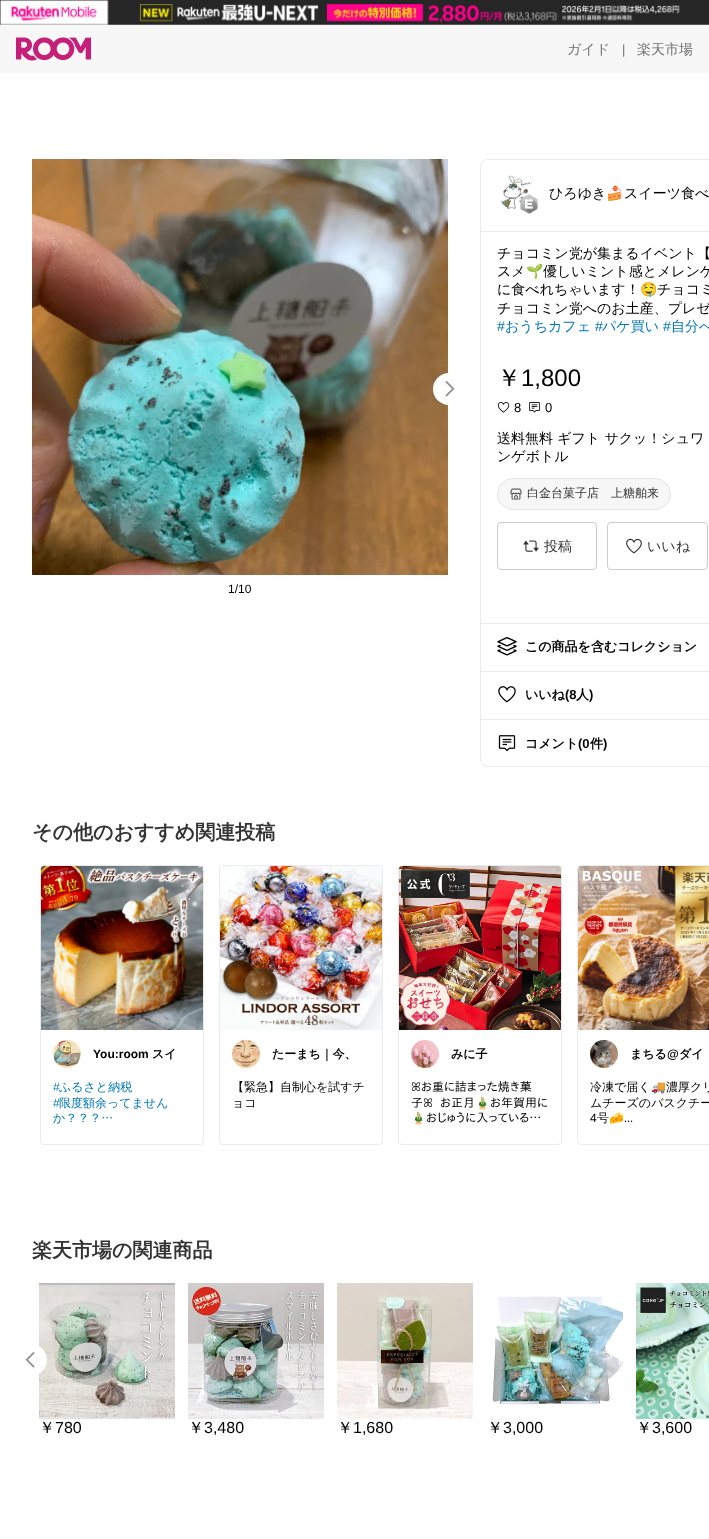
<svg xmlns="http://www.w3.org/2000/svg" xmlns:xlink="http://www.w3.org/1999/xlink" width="709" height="1539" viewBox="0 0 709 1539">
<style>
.cls-1{font:500 14px WenQuanYi Zen Hei;fill:#717171}
.cls-2{font:13px Liberation Sans;fill:#717171}
.cls-3{font:12px Liberation Sans;fill:#000000}
.cls-4{font:500 14px WenQuanYi Zen Hei;fill:#000000}
.cls-5{font:14px Noto Color Emoji;fill:#000000}
.cls-6{font:14px Liberation Sans;fill:#0078b5}
.cls-7{font:500 14px WenQuanYi Zen Hei;fill:#0078b5}
.cls-8{font:500 24px WenQuanYi Zen Hei;fill:#000000}
.cls-9{font:24px Liberation Sans;fill:#000000}
.cls-10{font:13px Liberation Sans;fill:#000000}
.cls-11{font:500 12px WenQuanYi Zen Hei;fill:#333333}
.cls-12{font:500 14px WenQuanYi Zen Hei;fill:#333333}
.cls-13{font:bold 13px WenQuanYi Zen Hei;fill:#000000}
.cls-14{font:bold 13px Liberation Sans;fill:#000000}
.cls-15{font:bold 20px WenQuanYi Zen Hei;fill:#333333}
.cls-16{font:bold 12px Liberation Sans;fill:#000000}
.cls-17{font:bold 12px WenQuanYi Zen Hei;fill:#000000}
.cls-18{font:12px Liberation Sans;fill:#0078b5}
.cls-19{font:500 12px WenQuanYi Zen Hei;fill:#0078b5}
.cls-20{font:500 12px WenQuanYi Zen Hei;fill:#000000}
.cls-21{font:12px FreeSans;fill:#000000}
.cls-22{font:12px IPAPGothic;fill:#000000}
.cls-23{font:12px Noto Color Emoji;fill:#000000}
.cls-24{font:500 16px WenQuanYi Zen Hei;fill:#000000}
.cls-25{font:16px Liberation Sans;fill:#000000}
</style>
<rect width="100%" height="100%" fill="#ffffff"/>
<image xlink:href="image0.png" x="0" y="0" width="709" height="25"/>
<rect fill="#f7f7f7" x="0" y="25" width="709" height="48"/>
<image xlink:href="image1.png" x="16" y="37" width="75" height="24"/>
<image xlink:href="image2.png" x="32" y="159" width="416" height="416"/>
<circle fill="#ffffff" cx="449" cy="389" r="16"/>
<image xlink:href="image3.png" x="445" y="381" width="10" height="16"/>
<rect fill="none" stroke="#ebebeb" x="480.5" y="159.5" width="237" height="607" rx="7.5"/>
<rect fill="#ebebeb" x="481" y="231" width="228" height="1"/>
<image xlink:href="image4.png" x="501" y="173" width="31" height="36"/>
<image xlink:href="image5.png" x="520" y="194" width="18" height="20"/>
<rect fill="#ebebeb" x="481" y="623" width="228" height="1"/>
<image xlink:href="image6.png" x="497" y="402" width="13" height="11"/>
<image xlink:href="image7.png" x="529" y="402" width="11" height="11"/>
<rect fill="#f7f7f7" x="497" y="478" width="174" height="32" rx="16"/>
<rect fill="none" stroke="#000000" stroke-opacity="0.08" x="497.5" y="478.5" width="173" height="31" rx="15.5"/>
<image xlink:href="image8.png" x="510" y="488" width="12" height="12"/>
<rect fill="none" stroke="#cccccc" x="497.5" y="522.5" width="99" height="47" rx="3.5"/>
<image xlink:href="image9.png" x="523" y="540" width="16" height="12"/>
<rect fill="none" stroke="#cccccc" x="607.5" y="522.5" width="100" height="47" rx="3.5"/>
<image xlink:href="image10.png" x="626" y="538" width="16" height="16"/>
<rect fill="#ebebeb" x="481" y="671" width="228" height="1"/>
<image xlink:href="image11.png" x="497" y="637" width="20" height="19"/>
<rect fill="#ebebeb" x="481" y="719" width="228" height="1"/>
<image xlink:href="image12.png" x="498" y="686" width="18" height="17"/>
<image xlink:href="image13.png" x="498" y="735" width="18" height="17"/>
<rect fill="none" stroke="#ebebeb" x="40.5" y="865.5" width="163" height="279" rx="3.5"/>
<image xlink:href="image14.png" x="41" y="866" width="162" height="164"/>
<image xlink:href="image15.png" x="53" y="1040" width="28" height="28"/>
<rect fill="none" stroke="#ebebeb" x="219.5" y="865.5" width="163" height="279" rx="3.5"/>
<image xlink:href="image16.png" x="220" y="866" width="162" height="164"/>
<image xlink:href="image17.png" x="232" y="1040" width="28" height="28"/>
<rect fill="none" stroke="#ebebeb" x="398.5" y="865.5" width="163" height="279" rx="3.5"/>
<image xlink:href="image18.png" x="399" y="866" width="162" height="164"/>
<image xlink:href="image19.png" x="411" y="1040" width="28" height="28"/>
<rect fill="none" stroke="#ebebeb" x="577.5" y="865.5" width="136" height="279" rx="3.5"/>
<image xlink:href="image20.png" x="578" y="866" width="131" height="164"/>
<image xlink:href="image21.png" x="590" y="1040" width="28" height="28"/>
<image xlink:href="image23.png" x="39" y="1283" width="136" height="136"/>
<circle fill="#ffffff" cx="31" cy="1360" r="16"/>
<image xlink:href="image22.png" x="25" y="1352" width="10" height="16"/>
<image xlink:href="image24.png" x="188" y="1283" width="136" height="136"/>
<image xlink:href="image25.png" x="337" y="1283" width="136" height="136"/>
<image xlink:href="image26.png" x="492" y="1296" width="131" height="109"/>
<image xlink:href="image27.png" x="636" y="1283" width="73" height="136"/>
<text class="cls-1" x="567" y="54">ガイド</text>
<text class="cls-2" x="622" y="54">|</text>
<text class="cls-1" x="637" y="54">楽天市場</text>
<text class="cls-3" x="228" y="593">1/10</text>
<text class="cls-4" x="549" y="198">ひろゆき</text>
<text class="cls-5" x="606" y="198">🍰</text>
<text class="cls-4" x="624" y="198">スイーツ食べ</text>
<text class="cls-4"><tspan x="497" y="258">チョコミン党が集まるイベント【</tspan><tspan x="497" y="276">スメ</tspan></text>
<text class="cls-5" x="526" y="276">🌱</text>
<text class="cls-4" x="543" y="276">優しいミント感とメレンゲ</text>
<text class="cls-4" x="497" y="294">に食べれちゃいます！</text>
<text class="cls-5" x="640" y="294">🤤</text>
<text class="cls-4" x="657" y="294">チョコミ</text>
<text class="cls-4" x="497" y="313">チョコミン党へのお土産、プレゼ</text>
<text class="cls-6" x="497" y="331">#</text>
<text class="cls-7" x="505" y="331">おうちカフェ</text>
<text class="cls-6" x="595" y="331">#</text>
<text class="cls-7" x="602" y="331">パケ買い</text>
<text class="cls-6" x="663" y="331">#</text>
<text class="cls-7" x="671" y="331">自分へ</text>
<text class="cls-8" x="497" y="386">￥</text>
<text class="cls-9" x="521" y="386">1,800</text>
<text class="cls-10" x="514" y="412">8</text>
<text class="cls-10" x="545" y="412">0</text>
<text class="cls-4"><tspan x="497" y="443">送料無料 ギフト サクッ！シュワ</tspan><tspan x="497" y="461">ンゲボトル</tspan></text>
<text class="cls-11" x="527" y="497">白金台菓子店　上糖舶来</text>
<text class="cls-12" x="544" y="551">投稿</text>
<text class="cls-12" x="647" y="551">いいね</text>
<text class="cls-13" x="525" y="651">この商品を含むコレクション</text>
<text class="cls-13" x="525" y="699">いいね</text>
<text class="cls-14" x="565" y="699">(8</text>
<text class="cls-13" x="576" y="699">人</text>
<text class="cls-14" x="589" y="699">)</text>
<text class="cls-13" x="525" y="748">コメント</text>
<text class="cls-14" x="578" y="748">(0</text>
<text class="cls-13" x="590" y="748">件</text>
<text class="cls-14" x="603" y="748">)</text>
<text class="cls-15" x="32" y="839">その他のおすすめ関連投稿</text>
<text class="cls-16" x="93" y="1058">You:room</text>
<text class="cls-17" x="152" y="1058">スイ</text>
<text class="cls-18" x="53" y="1091">#</text>
<text class="cls-19" x="59" y="1091">ふるさと納税</text>
<text class="cls-18" x="53" y="1107">#</text>
<text class="cls-19" x="59" y="1107">限度額余ってません</text>
<text class="cls-19" x="53" y="1122">か？？？…</text>
<text class="cls-17" x="272" y="1058">たーまち｜今、</text>
<text class="cls-20"><tspan x="232" y="1091">【緊急】自制心を試すチ</tspan><tspan x="232" y="1107">ョコ</tspan></text>
<text class="cls-17" x="451" y="1058">みに子</text>
<text class="cls-21" x="411" y="1091">ꕤ</text>
<text class="cls-22" x="421" y="1091">お重に詰まった焼き菓</text>
<text class="cls-22" x="411" y="1107">子</text>
<text class="cls-21" x="423" y="1107">ꕤ</text>
<text class="cls-22" x="440" y="1107">お正月</text>
<text class="cls-23" x="475" y="1107">🎍</text>
<text class="cls-22" x="490" y="1107">お年賀用に</text>
<text class="cls-23" x="411" y="1122">🎍</text>
<text class="cls-22" x="426" y="1122">おじゅうに入っている…</text>
<text class="cls-17" x="630" y="1058">まちる</text>
<text class="cls-16" x="667" y="1058">@</text>
<text class="cls-17" x="679" y="1058">ダイ</text>
<text class="cls-20" x="590" y="1091">冷凍で届く</text>
<text class="cls-23" x="651" y="1091">🚚</text>
<text class="cls-20" x="666" y="1091">濃厚クリ</text>
<text class="cls-20" x="590" y="1107">ムチーズのバスクチー</text>
<text class="cls-3" x="590" y="1122">4</text>
<text class="cls-20" x="597" y="1122">号</text>
<text class="cls-23" x="609" y="1122">🧀...</text>
<text class="cls-15" x="32" y="1257">楽天市場の関連商品</text>
<text class="cls-24" x="39" y="1433">￥</text>
<text class="cls-25" x="55" y="1433">780</text>
<text class="cls-24" x="188" y="1433">￥</text>
<text class="cls-25" x="204" y="1433">3,480</text>
<text class="cls-24" x="337" y="1433">￥</text>
<text class="cls-25" x="353" y="1433">1,680</text>
<text class="cls-24" x="487" y="1433">￥</text>
<text class="cls-25" x="503" y="1433">3,000</text>
<text class="cls-24" x="636" y="1433">￥</text>
<text class="cls-25" x="652" y="1433">3,600</text>
</svg>
